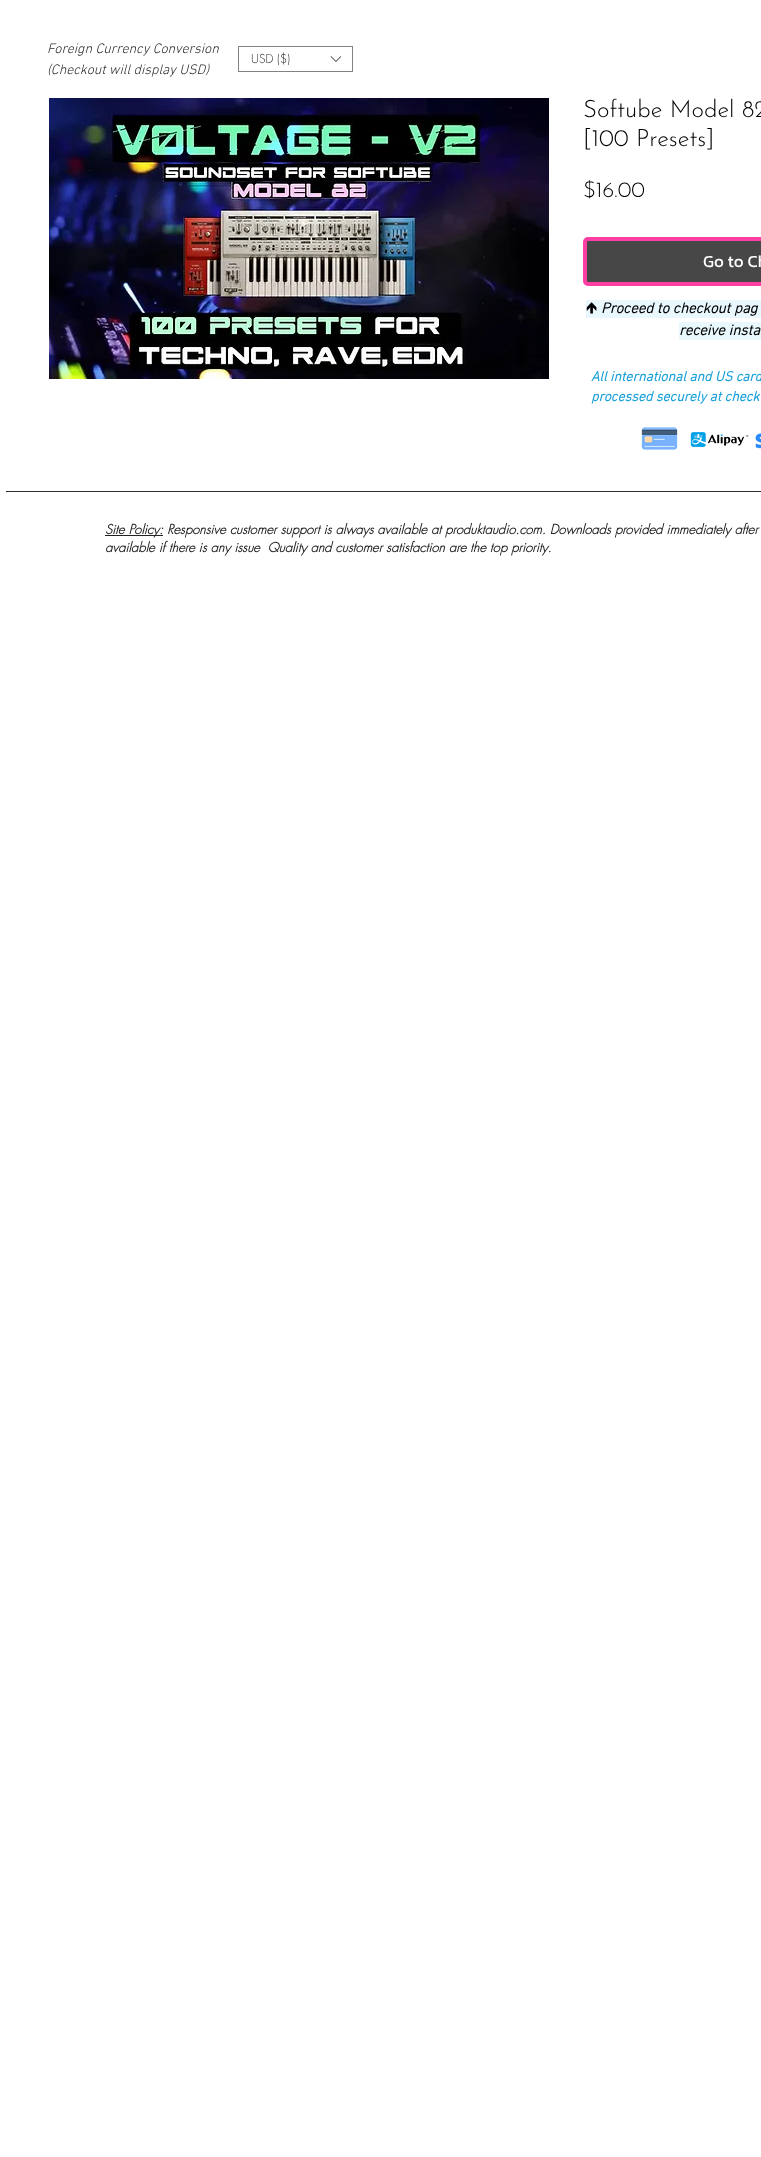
<svg xmlns="http://www.w3.org/2000/svg" xmlns:xlink="http://www.w3.org/1999/xlink" width="761" height="2157" viewBox="0 0 761 2157">
<style>
.cls-1{font:italic 300 14px 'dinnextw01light';fill:#2f2e2e}
.cls-2{font:300 12px futura;fill:#2f2e2e}
.cls-3{font:100 24px Josefin Sans;fill:#000000}
.cls-4{font:100 22px Josefin Sans;fill:#000000}
.cls-5{font:17px Kanit;fill:#ffffff}
.cls-6{font:bold 15px 'Noto Sans Symbols 2';fill:#000000}
.cls-7{font:italic bold 15px 'dinnextw01light';fill:#000000}
.cls-8{font:italic bold 14px 'dinnextw01light';fill:#1aa0d9}
.cls-9{font:italic bold 13px futura;fill:#242323}
</style>
<rect width="100%" height="100%" fill="#ffffff"/>
<rect fill="none" stroke="#828282" x="238.5" y="46.5" width="114" height="25"/>
<image xlink:href="image0.png" x="330" y="56" width="12" height="6"/>
<image xlink:href="image1.png" x="49" y="98" width="500" height="281"/>
<rect fill="#484747" stroke="#ff3ea4" stroke-width="4" x="585" y="239" width="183" height="45" rx="3"/>
<rect fill="#e9f8ff" x="586" y="300" width="175" height="18"/>
<rect fill="#e9f8ff" x="679" y="322" width="82" height="18"/>
<image xlink:href="image2.png" x="641" y="427" width="37" height="23"/>
<image xlink:href="image3.png" x="690" y="432" width="59" height="16"/>
<image xlink:href="image4.png" x="755" y="433" width="6" height="16"/>
<rect fill="#2f2e2e" x="6" y="491" width="755" height="1"/>
<rect fill="#242323" x="105" y="535" width="58" height="1"/>
<text class="cls-1"><tspan x="47" y="53">Foreign Currency Conversion</tspan><tspan x="47" y="74">(Checkout will display USD)</tspan></text>
<text class="cls-2" x="251" y="63">USD ($)</text>
<text class="cls-3"><tspan x="583" y="117">Softube Model 82</tspan><tspan x="583" y="146">[100 Presets]</tspan></text>
<text class="cls-4" x="583" y="197">$16.00</text>
<text class="cls-5" x="703" y="267">Go to Ch</text>
<text class="cls-6" x="586" y="313">🡹</text>
<text class="cls-7" x="601" y="313">Proceed to checkout pag</text>
<text class="cls-7" x="679" y="335">receive insta</text>
<text class="cls-8"><tspan x="591" y="381">All international and US card</tspan><tspan x="591" y="401">processed securely at check</tspan></text>
<text class="cls-9" x="105" y="534">Site Policy:</text>
<text class="cls-9" x="167" y="534">Responsive customer support is always available at produktaudio.com. Downloads provided immediately after</text>
<text class="cls-9" xml:space="preserve" x="105" y="552">available if there is any issue  Quality and customer satisfaction are the top priority.</text>
</svg>
